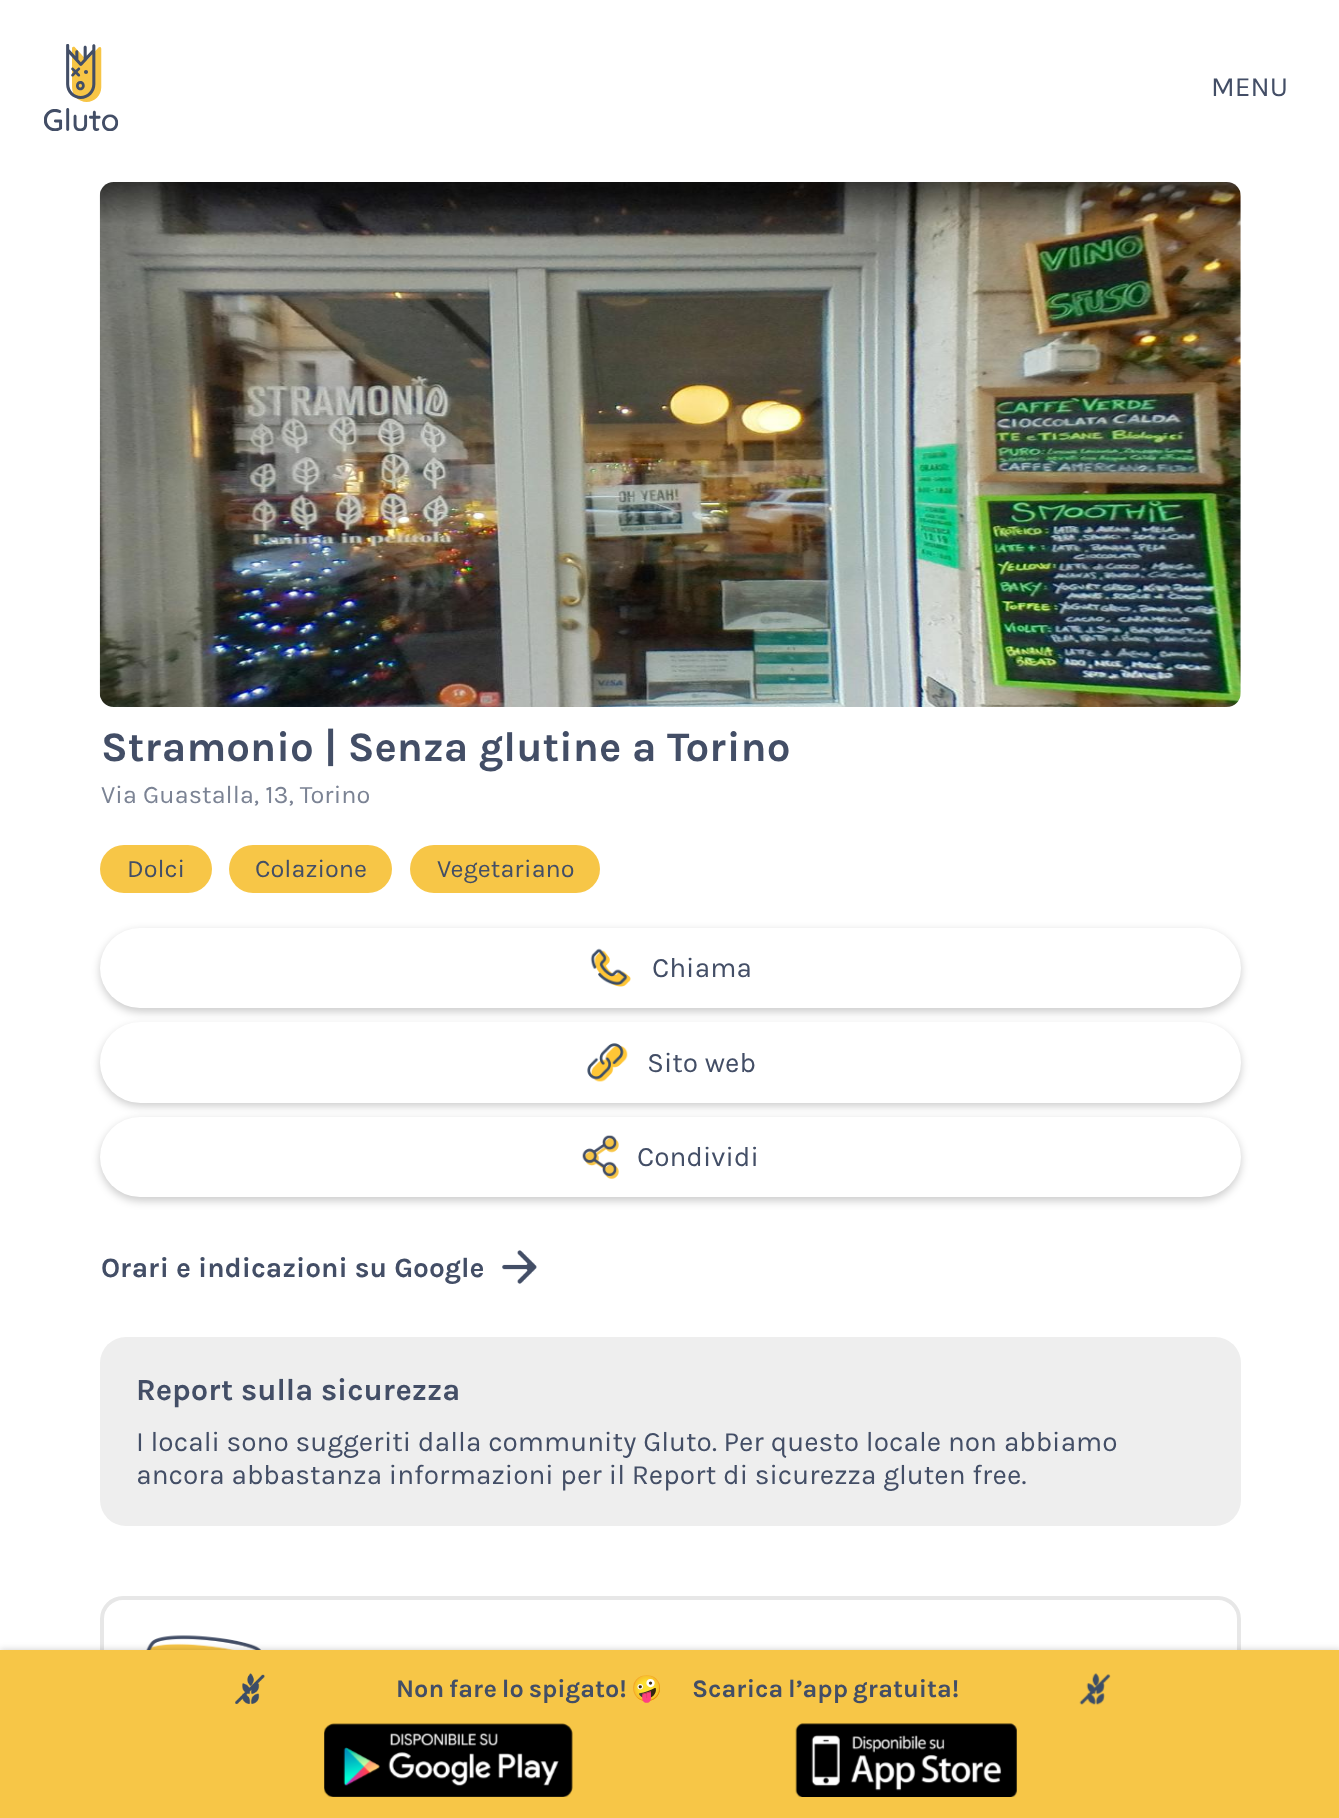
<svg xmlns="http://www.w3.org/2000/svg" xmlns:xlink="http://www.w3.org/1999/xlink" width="1339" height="1818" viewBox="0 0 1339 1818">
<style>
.cls-1{font:28px Karla;fill:#434e66}
.cls-2{font:bold 42px Karla;fill:#434e66}
.cls-3{font:25.25px Karla;fill:#7b8394}
.cls-4{font:25.25px Karla;fill:#434e66}
.cls-5{font:bold 28px Karla;fill:#434e66}
.cls-6{font:bold 30.75px Karla;fill:#434e66}
.cls-7{font:bold 25.25px Karla;fill:#434e66}
.cls-8{font:25.25px Noto Color Emoji;fill:#434e66}
</style>
<rect width="100%" height="100%" fill="#ffffff"/>
<image xlink:href="image0.png" x="44" y="44" width="75" height="87"/>
<image xlink:href="image1.png" x="99" y="182" width="1142" height="525"/>
<rect fill="#f7c647" x="100" y="845" width="112" height="48" rx="24"/>
<rect fill="#f7c647" x="229" y="845" width="163" height="48" rx="24"/>
<rect fill="#f7c647" x="410" y="845" width="190" height="48" rx="24"/>
<rect fill="#000000" fill-opacity="0.2" filter="blur(4.5px)" x="100" y="931" width="1141" height="81" rx="40.5"/>
<rect fill="#ffffff" x="100" y="928" width="1141" height="80" rx="40"/>
<image xlink:href="image2.png" x="590" y="948" width="41" height="39"/>
<rect fill="#000000" fill-opacity="0.2" filter="blur(4.5px)" x="100" y="1026" width="1141" height="80" rx="40"/>
<rect fill="#ffffff" x="100" y="1022" width="1141" height="81" rx="40.5"/>
<image xlink:href="image3.png" x="587" y="1043" width="41" height="39"/>
<rect fill="#000000" fill-opacity="0.2" filter="blur(4.5px)" x="100" y="1120" width="1141" height="81" rx="40.5"/>
<rect fill="#ffffff" x="100" y="1117" width="1141" height="80" rx="40"/>
<image xlink:href="image4.png" x="582" y="1135" width="37" height="44"/>
<image xlink:href="image5.png" x="502" y="1250" width="35" height="34"/>
<rect fill="#eeeeee" x="100" y="1337" width="1141" height="189" rx="26"/>
<rect fill="none" stroke="#e7e7e7" stroke-width="4" x="102" y="1598" width="1137" height="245" rx="21"/>
<image xlink:href="image6.png" x="146" y="1635" width="116" height="15"/>
<rect fill="#000000" fill-opacity="0.2" filter="blur(3.5px)" x="0" y="1650" width="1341" height="168"/>
<rect fill="#f7c647" x="0" y="1650" width="1339" height="168"/>
<image xlink:href="image7.png" x="235" y="1673" width="30" height="31"/>
<image xlink:href="image8.png" x="1079" y="1673" width="32" height="32"/>
<image xlink:href="image9.png" x="324" y="1723" width="249" height="74"/>
<image xlink:href="image10.png" x="795" y="1723" width="222" height="74"/>
<text class="cls-1" x="1211" y="96">MENU</text>
<text class="cls-2" x="101" y="761">Stramonio | Senza glutine a Torino</text>
<text class="cls-3" x="101" y="803">Via Guastalla, 13, Torino</text>
<text class="cls-4" x="127" y="877">Dolci</text>
<text class="cls-4" x="255" y="877">Colazione</text>
<text class="cls-4" x="437" y="877">Vegetariano</text>
<text class="cls-1" x="652" y="977">Chiama</text>
<text class="cls-1" x="647" y="1072">Sito web</text>
<text class="cls-1" x="637" y="1166">Condividi</text>
<text class="cls-5" x="101" y="1277">Orari e indicazioni su Google</text>
<text class="cls-6" x="136" y="1400">Report sulla sicurezza</text>
<text class="cls-1"><tspan x="136" y="1451">I locali sono suggeriti dalla community Gluto. Per questo locale non abbiamo</tspan><tspan x="136" y="1484">ancora abbastanza informazioni per il Report di sicurezza gluten free.</tspan></text>
<text class="cls-7" x="396" y="1697" word-spacing="-1.5">Non fare lo spigato!</text>
<text class="cls-8" x="631" y="1697">🤪‍</text>
<text class="cls-7" x="692" y="1697" word-spacing="-1.5">Scarica l’app gratuita!</text>
</svg>
